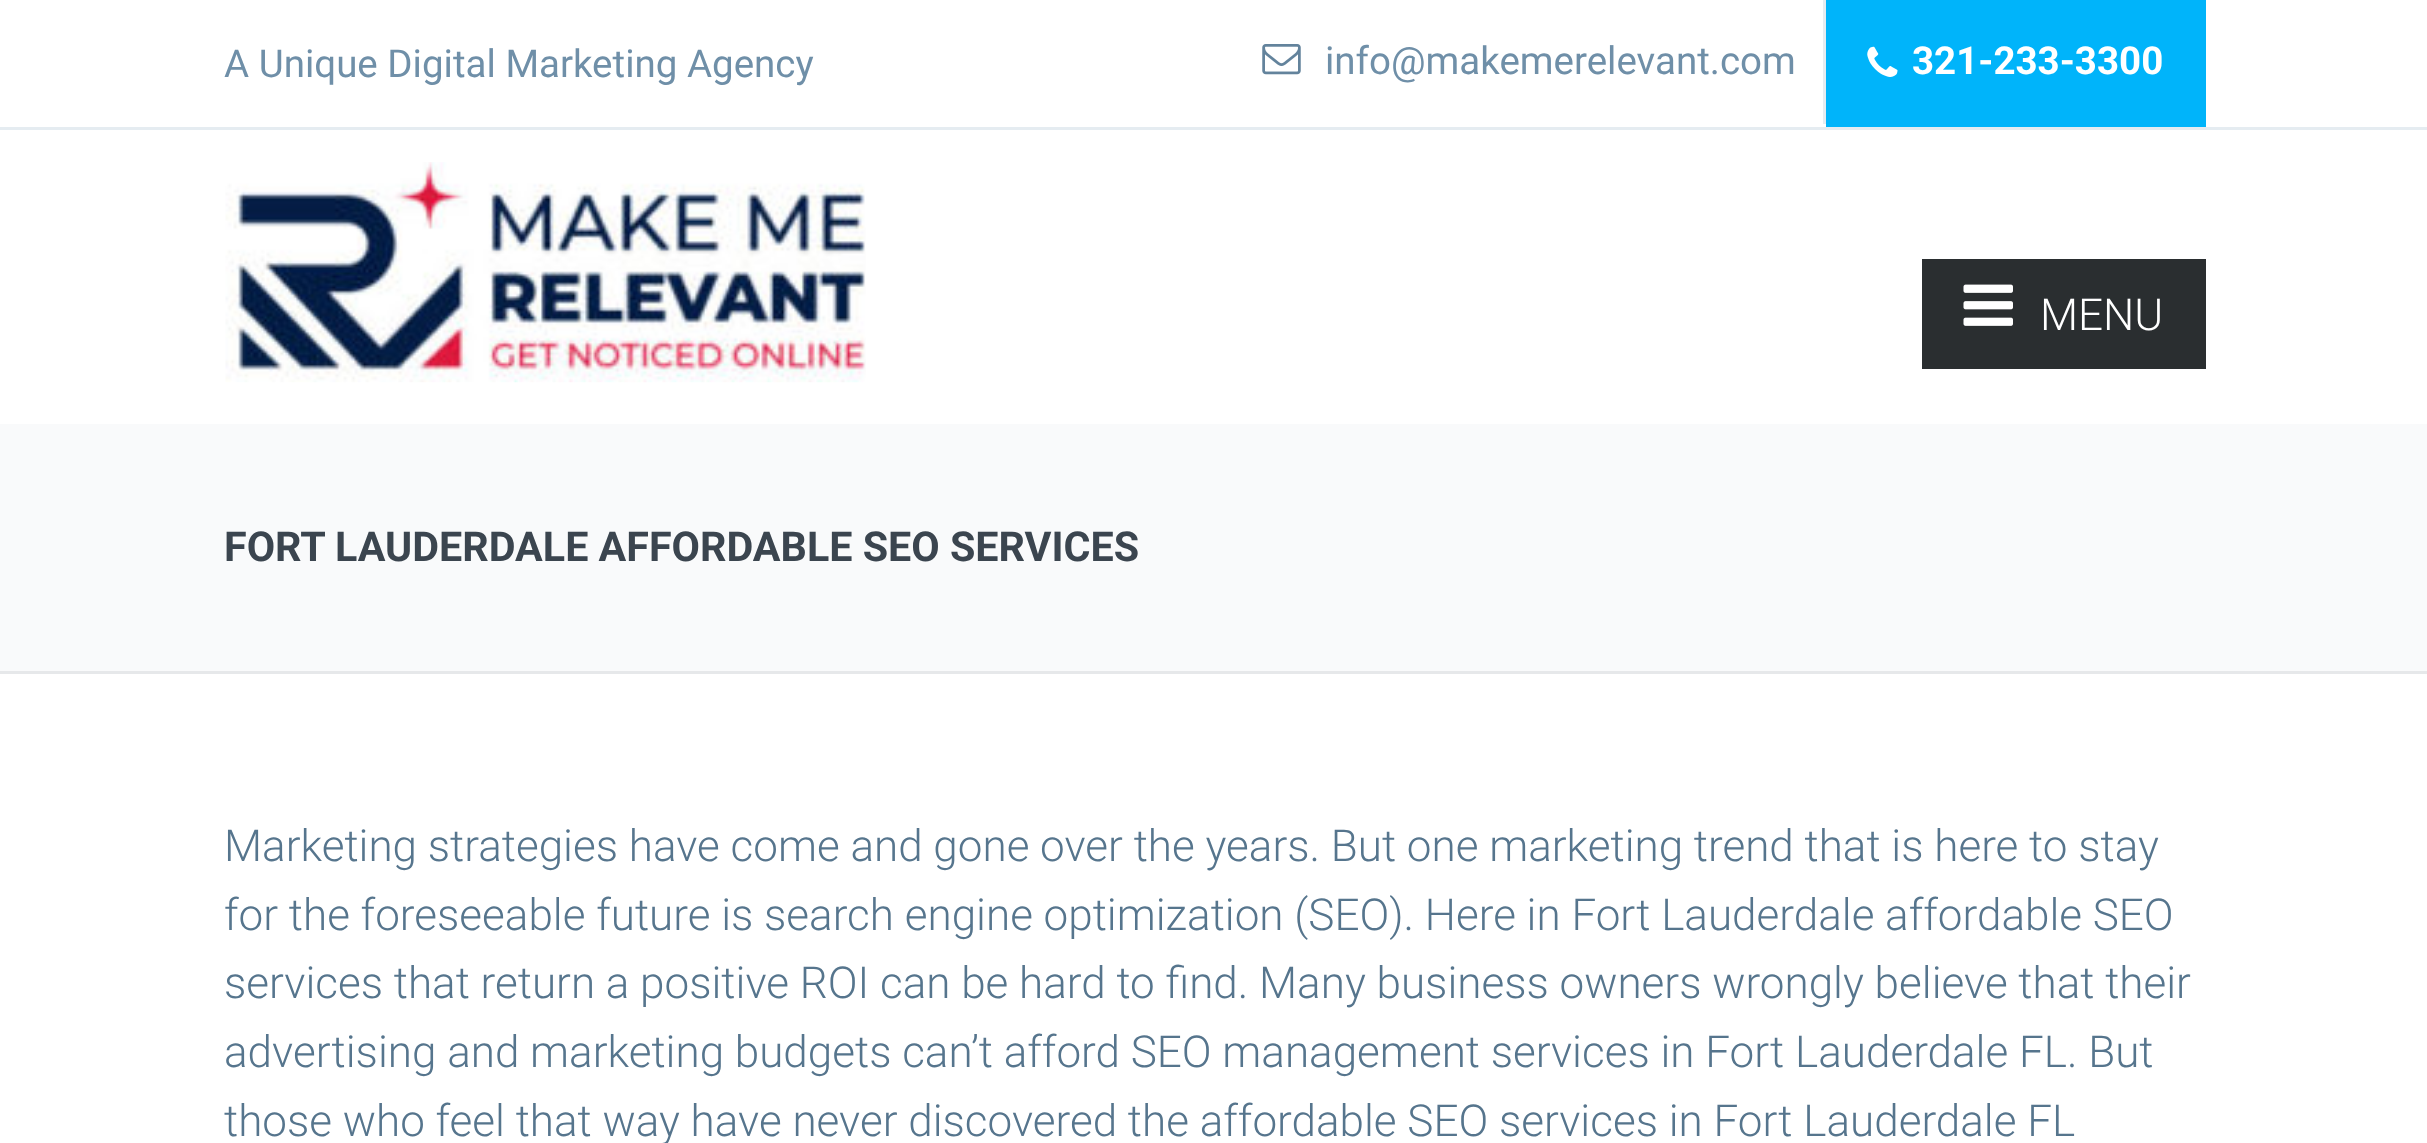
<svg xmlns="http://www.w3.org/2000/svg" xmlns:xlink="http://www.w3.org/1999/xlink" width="2427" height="1143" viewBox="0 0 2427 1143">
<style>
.cls-1{font:38.5px Roboto;fill:#6f8fa8}
.cls-2{font:bold 38.5px Roboto;fill:#ffffff}
.cls-3{font:300 44px Roboto;fill:#ffffff}
.cls-4{font:bold 41.25px Roboto;fill:#3b454f}
.cls-5{font:300 44px Roboto;fill:#56758d}
</style>
<rect width="100%" height="100%" fill="#ffffff"/>
<rect fill="#e5ecf1" x="0" y="127" width="2427" height="3"/>
<rect fill="#e5ecf1" x="1823" y="0" width="3" height="124"/>
<image xlink:href="image0.png" x="1262" y="44" width="39" height="31"/>
<rect fill="#00b4fa" x="1826" y="0" width="380" height="127"/>
<image xlink:href="image1.png" x="1867" y="46" width="31" height="31"/>
<image xlink:href="image2.png" x="225" y="162" width="641" height="221"/>
<rect fill="#2a2e30" x="1922" y="259" width="284" height="110"/>
<image xlink:href="image3.png" x="1963" y="284" width="50" height="42"/>
<rect fill="#f9fafb" x="0" y="424" width="2427" height="247"/>
<rect fill="#e6e8ea" x="0" y="671" width="2427" height="3"/>
<text class="cls-1" x="224" y="77">A Unique Digital Marketing Agency</text>
<text class="cls-1" x="1325" y="74">info@makemerelevant.com</text>
<text class="cls-2" x="1912" y="74">321-233-3300</text>
<text class="cls-3" x="2040" y="330">MENU</text>
<text class="cls-4" x="224" y="561">FORT LAUDERDALE AFFORDABLE SEO SERVICES</text>
<text class="cls-5"><tspan x="224" y="861">Marketing strategies have come and gone over the years. But one marketing trend that is here to stay</tspan><tspan x="224" y="930">for the foreseeable future is search engine optimization (SEO). Here in Fort Lauderdale affordable SEO</tspan><tspan x="224" y="998">services that return a positive ROI can be hard to find. Many business owners wrongly believe that their</tspan><tspan x="224" y="1067">advertising and marketing budgets can’t afford SEO management services in Fort Lauderdale FL. But</tspan><tspan x="224" y="1136">those who feel that way have never discovered the affordable SEO services in Fort Lauderdale FL</tspan></text>
</svg>
